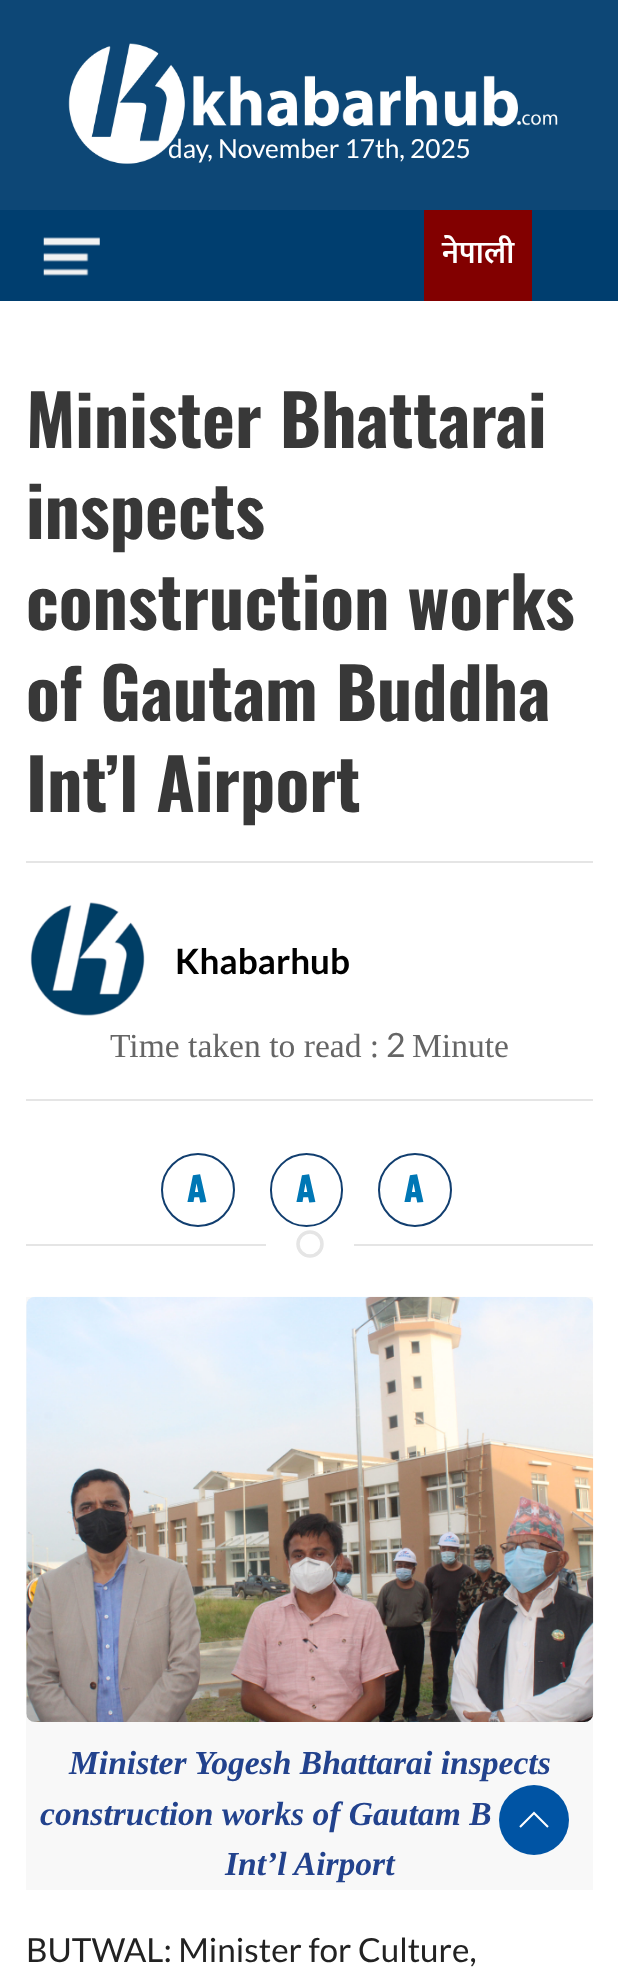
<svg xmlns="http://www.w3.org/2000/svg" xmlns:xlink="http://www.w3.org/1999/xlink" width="618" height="1983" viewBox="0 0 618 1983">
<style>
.cls-1{font:26.25px Lato;fill:#ffffff}
.cls-2{font:600 31.5px Mukta;letter-spacing:0.25px;fill:#ffffff}
.cls-3{font:bold 70px Oswald;fill:#383838}
.cls-4{font:bold 35px Lato;fill:#000000}
.cls-5{font:33.6px Liberation Serif;fill:#656565}
.cls-6{font:33.6px Lato;fill:#656565}
.cls-7{font:bold 35px Freeman;fill:#0077b5}
.cls-8{font:italic bold 33.6px Liberation Serif;fill:#22428d}
.cls-9{font:33.25px Lato;fill:#222222}
</style>
<rect width="100%" height="100%" fill="#ffffff"/>
<rect fill="#0d4776" x="0" y="0" width="618" height="210"/>
<image xlink:href="image0.png" x="68" y="43" width="490" height="121"/>
<rect fill="#003e6f" x="0" y="210" width="618" height="91"/>
<image xlink:href="image1.png" x="43" y="237" width="57" height="39"/>
<rect fill="#820000" x="424" y="210" width="108" height="91"/>
<rect fill="#e5e5e5" x="26" y="861" width="567" height="2"/>
<image xlink:href="image2.png" x="30" y="902" width="115" height="114"/>
<rect fill="#e5e5e5" x="26" y="1099" width="567" height="2"/>
<circle fill="none" stroke="#113e6f" stroke-width="2" cx="198" cy="1190" r="36"/>
<rect fill="none" stroke="#113e6f" stroke-width="2" x="271" y="1154" width="71" height="72" rx="35.5"/>
<circle fill="none" stroke="#113e6f" stroke-width="2" cx="415" cy="1190" r="36"/>
<circle fill="none" stroke="#e5e5e5" stroke-width="3.5" cx="310" cy="1244" r="12"/>
<rect fill="#e5e5e5" x="26" y="1244" width="240" height="2"/>
<rect fill="#e5e5e5" x="354" y="1244" width="239" height="2"/>
<rect fill="#f8f8f8" x="26" y="1297" width="567" height="593"/>
<image xlink:href="image3.png" x="26" y="1296" width="568" height="426"/>
<circle fill="#0054a4" cx="534" cy="1820" r="35"/>
<path fill="none" stroke="#ffffff" stroke-width="2.1" d="M520 1827L534 1813L548 1827"/>
<text class="cls-1" x="168" y="158">day, November 17th, 2025</text>
<text class="cls-2" x="442" y="263">नेपाली</text>
<text class="cls-3"><tspan x="26" y="448">Minister Bhattarai</tspan><tspan x="26" y="539">inspects</tspan><tspan x="26" y="630">construction works</tspan><tspan x="26" y="721">of Gautam Buddha</tspan><tspan x="26" y="812">Int’l Airport</tspan></text>
<text class="cls-4" x="175" y="974">Khabarhub</text>
<text class="cls-5" x="110" y="1057">Time taken to read :</text>
<text class="cls-6" x="386" y="1057">2</text>
<text class="cls-5" x="412" y="1057">Minute</text>
<text class="cls-7" x="187" y="1202">A</text>
<text class="cls-7" x="296" y="1202">A</text>
<text class="cls-7" x="404" y="1202">A</text>
<text class="cls-8" x="69" y="1774">Minister Yogesh Bhattarai inspects</text>
<text class="cls-8" x="40" y="1825">construction works of Gautam B</text>
<text class="cls-8" x="225" y="1875">Int’l Airport</text>
<text class="cls-9" x="26" y="1962">BUTWAL: Minister for Culture,</text>
</svg>
